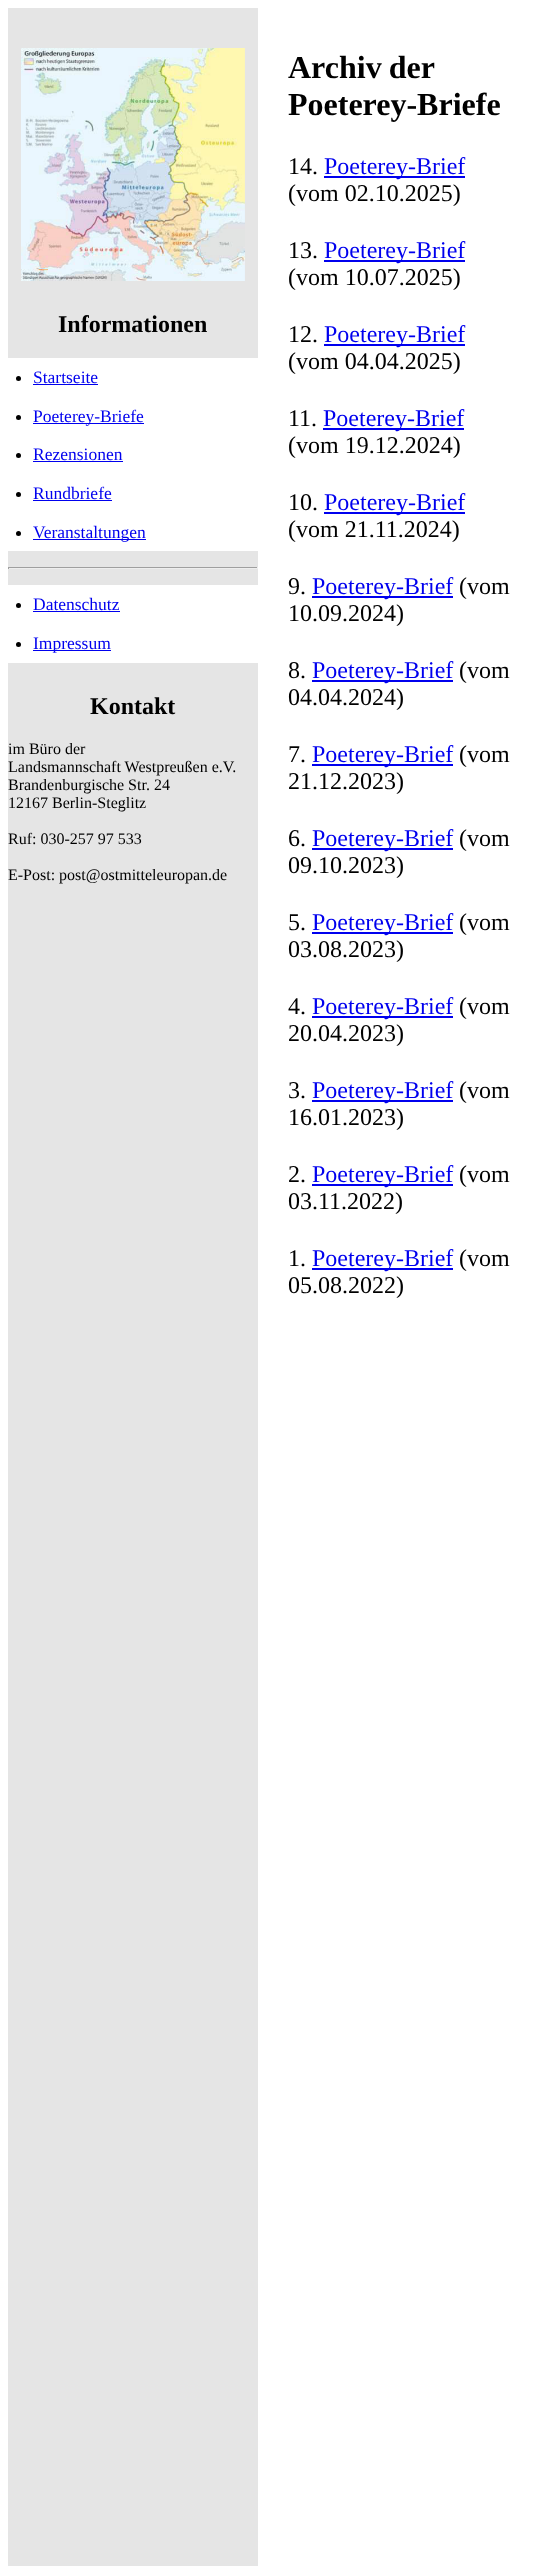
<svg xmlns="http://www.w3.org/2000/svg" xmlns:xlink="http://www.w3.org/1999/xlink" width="538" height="2566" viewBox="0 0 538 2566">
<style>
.cls-1{font:bold 24px Liberation Serif;fill:#000000}
.cls-2{font:17.5px Liberation Serif;fill:#0000ee}
.cls-3{font:16px Liberation Serif;fill:#000000}
.cls-4{font:bold 32px Liberation Serif;fill:#000000}
.cls-5{font:24px Liberation Serif;fill:#000000}
.cls-6{font:24px Liberation Serif;fill:#0000ee}
</style>
<rect width="100%" height="100%" fill="#ffffff"/>
<rect fill="#e5e5e5" x="8" y="8" width="250" height="2558"/>
<image xlink:href="image0.png" x="21" y="48" width="224" height="233"/>
<rect fill="#ffffff" x="8" y="358" width="250" height="193"/>
<circle fill="#000000" cx="18.5" cy="378.5" r="2.5"/>
<rect fill="#0000ee" x="33" y="384" width="65" height="1"/>
<circle fill="#000000" cx="18.5" cy="417.5" r="2.5"/>
<rect fill="#0000ee" x="33" y="423" width="111" height="1"/>
<circle fill="#000000" cx="18.5" cy="455.5" r="2.5"/>
<rect fill="#0000ee" x="33" y="461" width="90" height="1"/>
<circle fill="#000000" cx="18.5" cy="494.5" r="2.5"/>
<rect fill="#0000ee" x="33" y="500" width="79" height="1"/>
<circle fill="#000000" cx="18.5" cy="533.5" r="2.5"/>
<rect fill="#0000ee" x="33" y="539" width="113" height="1"/>
<rect fill="#9f9f9f" x="8" y="567" width="250" height="1"/>
<rect fill="#eeeeee" x="257" y="567" width="1" height="2"/>
<rect fill="#eeeeee" x="8" y="568" width="250" height="1"/>
<rect fill="#9f9f9f" x="8" y="567" width="1" height="2"/>
<rect fill="#ffffff" x="8" y="585" width="250" height="78"/>
<circle fill="#000000" cx="18.5" cy="605.5" r="2.5"/>
<rect fill="#0000ee" x="33" y="611" width="87" height="1"/>
<circle fill="#000000" cx="18.5" cy="644.5" r="2.5"/>
<rect fill="#0000ee" x="33" y="650" width="78" height="1"/>
<rect fill="#0000ee" x="324" y="176" width="141" height="2"/>
<rect fill="#0000ee" x="324" y="260" width="141" height="2"/>
<rect fill="#0000ee" x="324" y="344" width="141" height="2"/>
<rect fill="#0000ee" x="323" y="428" width="141" height="2"/>
<rect fill="#0000ee" x="324" y="512" width="141" height="2"/>
<rect fill="#0000ee" x="312" y="596" width="141" height="2"/>
<rect fill="#0000ee" x="312" y="680" width="141" height="2"/>
<rect fill="#0000ee" x="312" y="764" width="141" height="2"/>
<rect fill="#0000ee" x="312" y="848" width="141" height="2"/>
<rect fill="#0000ee" x="312" y="932" width="141" height="2"/>
<rect fill="#0000ee" x="312" y="1016" width="141" height="2"/>
<rect fill="#0000ee" x="312" y="1100" width="141" height="2"/>
<rect fill="#0000ee" x="312" y="1184" width="141" height="2"/>
<rect fill="#0000ee" x="312" y="1268" width="141" height="2"/>
<text class="cls-1" x="58" y="332">Informationen</text>
<text class="cls-2" x="33" y="383">Startseite</text>
<text class="cls-2" x="33" y="422">Poeterey-Briefe</text>
<text class="cls-2" x="33" y="460">Rezensionen</text>
<text class="cls-2" x="33" y="499">Rundbriefe</text>
<text class="cls-2" x="33" y="538">Veranstaltungen</text>
<text class="cls-2" x="33" y="610">Datenschutz</text>
<text class="cls-2" x="33" y="649">Impressum</text>
<text class="cls-1" x="90" y="714">Kontakt</text>
<text class="cls-3"><tspan x="8" y="754">im Büro der</tspan><tspan x="8" y="772">Landsmannschaft Westpreußen e.V.</tspan><tspan x="8" y="790">Brandenburgische Str. 24</tspan><tspan x="8" y="808">12167 Berlin-Steglitz</tspan></text>
<text class="cls-3" x="8" y="844">Ruf: 030-257 97 533</text>
<text class="cls-3" x="8" y="880">E-Post: post@ostmitteleuropan.de</text>
<text class="cls-4"><tspan x="288" y="78" word-spacing="-1">Archiv der</tspan><tspan x="288" y="115">Poeterey-Briefe</tspan></text>
<text class="cls-5" x="288" y="174">14.</text>
<text class="cls-6" x="324" y="174">Poeterey-Brief</text>
<text class="cls-5" x="288" y="201">(vom 02.10.2025)</text>
<text class="cls-5" x="288" y="258">13.</text>
<text class="cls-6" x="324" y="258">Poeterey-Brief</text>
<text class="cls-5" x="288" y="285">(vom 10.07.2025)</text>
<text class="cls-5" x="288" y="342">12.</text>
<text class="cls-6" x="324" y="342">Poeterey-Brief</text>
<text class="cls-5" x="288" y="369">(vom 04.04.2025)</text>
<text class="cls-5" x="288" y="426">11.</text>
<text class="cls-6" x="323" y="426">Poeterey-Brief</text>
<text class="cls-5" x="288" y="453">(vom 19.12.2024)</text>
<text class="cls-5" x="288" y="510">10.</text>
<text class="cls-6" x="324" y="510">Poeterey-Brief</text>
<text class="cls-5" x="288" y="537">(vom 21.11.2024)</text>
<text class="cls-5" x="288" y="594">9.</text>
<text class="cls-6" x="312" y="594">Poeterey-Brief</text>
<text class="cls-5" x="459" y="594">(vom</text>
<text class="cls-5" x="288" y="621">10.09.2024)</text>
<text class="cls-5" x="288" y="678">8.</text>
<text class="cls-6" x="312" y="678">Poeterey-Brief</text>
<text class="cls-5" x="459" y="678">(vom</text>
<text class="cls-5" x="288" y="705">04.04.2024)</text>
<text class="cls-5" x="288" y="762">7.</text>
<text class="cls-6" x="312" y="762">Poeterey-Brief</text>
<text class="cls-5" x="459" y="762">(vom</text>
<text class="cls-5" x="288" y="789">21.12.2023)</text>
<text class="cls-5" x="288" y="846">6.</text>
<text class="cls-6" x="312" y="846">Poeterey-Brief</text>
<text class="cls-5" x="459" y="846">(vom</text>
<text class="cls-5" x="288" y="873">09.10.2023)</text>
<text class="cls-5" x="288" y="930">5.</text>
<text class="cls-6" x="312" y="930">Poeterey-Brief</text>
<text class="cls-5" x="459" y="930">(vom</text>
<text class="cls-5" x="288" y="957">03.08.2023)</text>
<text class="cls-5" x="288" y="1014">4.</text>
<text class="cls-6" x="312" y="1014">Poeterey-Brief</text>
<text class="cls-5" x="459" y="1014">(vom</text>
<text class="cls-5" x="288" y="1041">20.04.2023)</text>
<text class="cls-5" x="288" y="1098">3.</text>
<text class="cls-6" x="312" y="1098">Poeterey-Brief</text>
<text class="cls-5" x="459" y="1098">(vom</text>
<text class="cls-5" x="288" y="1125">16.01.2023)</text>
<text class="cls-5" x="288" y="1182">2.</text>
<text class="cls-6" x="312" y="1182">Poeterey-Brief</text>
<text class="cls-5" x="459" y="1182">(vom</text>
<text class="cls-5" x="288" y="1209">03.11.2022)</text>
<text class="cls-5" x="288" y="1266">1.</text>
<text class="cls-6" x="312" y="1266">Poeterey-Brief</text>
<text class="cls-5" x="459" y="1266">(vom</text>
<text class="cls-5" x="288" y="1293">05.08.2022)</text>
</svg>
